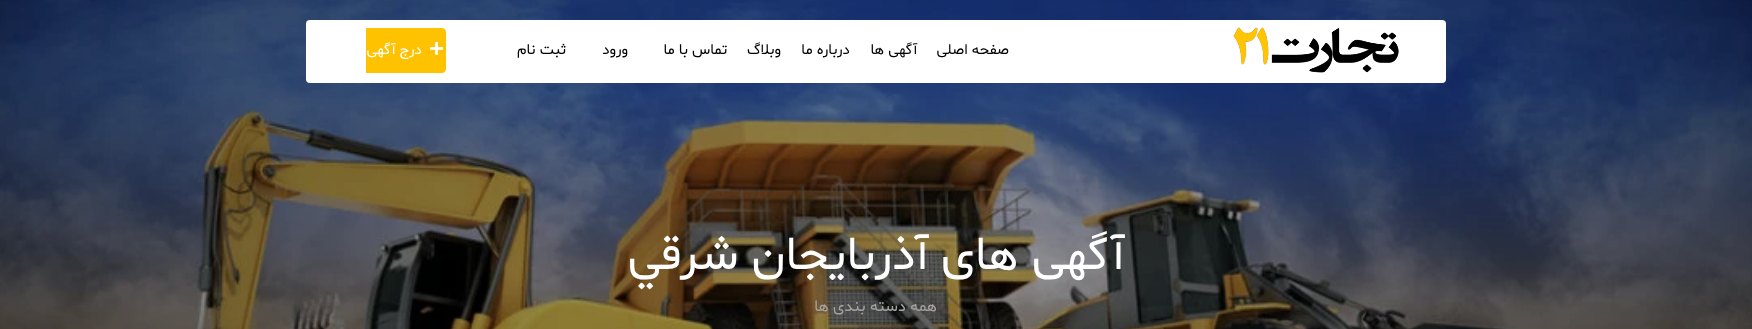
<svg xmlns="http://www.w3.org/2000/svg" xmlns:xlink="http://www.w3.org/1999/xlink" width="1752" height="329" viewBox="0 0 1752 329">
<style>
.cls-1{font:15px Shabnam;direction:rtl;fill:#000000}
.cls-2{font:15px Shabnam;direction:rtl;fill:#ffffff}
.cls-3{font:48px Shabnam;direction:rtl;fill:#ffffff}
.cls-4{font:16px Shabnam;direction:rtl;fill:#a4a29f}
</style>
<rect width="100%" height="100%" fill="#ffffff"/>
<image xlink:href="image2.png" x="0" y="0" width="1752" height="329"/>
<rect fill="#ffffff" x="306" y="20" width="1140" height="63" rx="4"/>
<image xlink:href="image0.png" x="1233" y="27" width="166" height="46"/>
<path fill="#fec200" d="M366 28H442C444 28 446 30 446 32V69C446 71 444 73 442 73H366Z"/>
<image xlink:href="image1.png" x="430" y="41" width="14" height="14"/>
<text class="cls-1" x="1009" y="54">صفحه اصلی</text>
<text class="cls-1" x="917" y="54">آگهی ها</text>
<text class="cls-1" x="850" y="54">درباره ما</text>
<text class="cls-1" x="781" y="54">وبلاگ</text>
<text class="cls-1" x="727" y="54">تماس با ما</text>
<text class="cls-1" x="628" y="54">ورود</text>
<text class="cls-1" x="566" y="54">ثبت نام</text>
<text class="cls-2" x="422" y="54">درج آگهی</text>
<text class="cls-3" x="1124" y="269">آگهی های آذربايجان شرقي</text>
<text class="cls-4" x="937" y="311">همه دسته بندی ها</text>
</svg>
